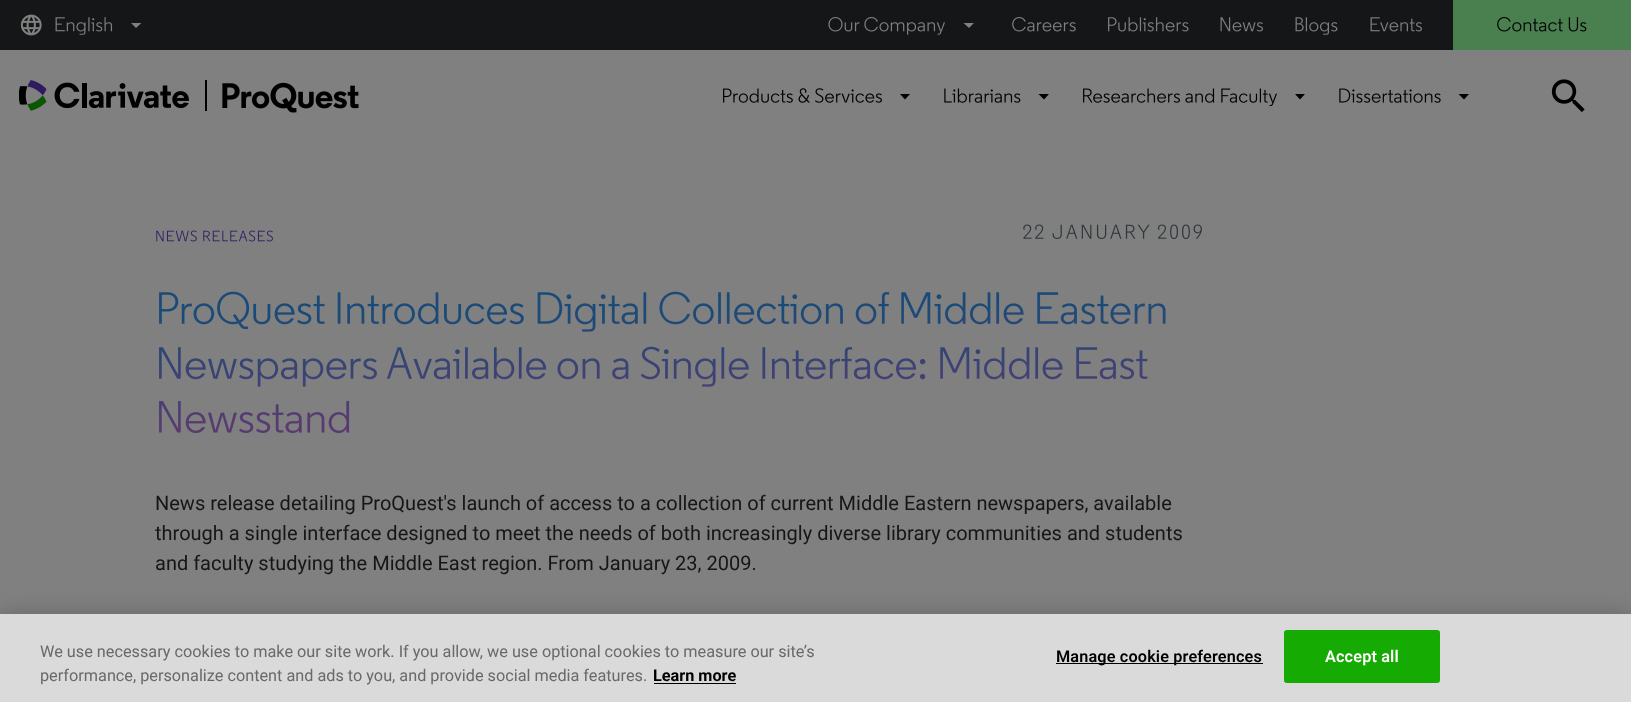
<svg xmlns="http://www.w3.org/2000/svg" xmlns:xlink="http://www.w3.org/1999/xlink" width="1631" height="702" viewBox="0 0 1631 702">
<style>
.cls-1{font:20px Roboto;fill:#151617}
.cls-2{font:16.25px Roboto;fill:#696969}
.cls-3{font:bold 16.25px Roboto;fill:#000000}
.cls-4{font:600 16.25px Roboto;letter-spacing:0.15px;fill:#000000}
.cls-5{font:600 16.25px Roboto;letter-spacing:0.15px;fill:#ffffff}
</style>
<rect width="100%" height="100%" fill="#808080"/>
<rect fill="#151617" x="0" y="0" width="1453" height="50"/>
<image xlink:href="image0.png" x="20" y="14" width="22" height="22"/>
<image xlink:href="image1.png" x="55" y="17" width="58" height="18"/>
<path fill="#808080" d="M131 23H141.5L136 28Z"/>
<image xlink:href="image2.png" x="828" y="17" width="117" height="18"/>
<path fill="#808080" d="M963.5 23H974L969 28Z"/>
<image xlink:href="image3.png" x="1012" y="17" width="64" height="15"/>
<image xlink:href="image4.png" x="1108" y="17" width="81" height="15"/>
<image xlink:href="image5.png" x="1220" y="17" width="43" height="15"/>
<image xlink:href="image6.png" x="1295" y="17" width="43" height="18"/>
<image xlink:href="image7.png" x="1370" y="17" width="52" height="15"/>
<rect fill="#4a804f" x="1453" y="0" width="178" height="50"/>
<image xlink:href="image8.png" x="1497" y="17" width="90" height="15"/>
<image xlink:href="image9.png" x="19" y="80" width="340" height="33"/>
<image xlink:href="image10.png" x="723" y="88" width="159" height="15"/>
<path fill="#000000" d="M900 94H910L905 99.5Z"/>
<image xlink:href="image11.png" x="944" y="88" width="77" height="15"/>
<path fill="#000000" d="M1038.5 94H1049L1044 99.5Z"/>
<image xlink:href="image12.png" x="1083" y="88" width="194" height="18"/>
<path fill="#000000" d="M1295 94H1305L1300 99.5Z"/>
<image xlink:href="image13.png" x="1339" y="88" width="102" height="15"/>
<path fill="#000000" d="M1458.5 94H1469L1464 99.5Z"/>
<image xlink:href="image14.png" x="1551" y="79" width="34" height="34"/>
<image xlink:href="image15.png" x="156" y="230" width="117" height="12"/>
<image xlink:href="image16.png" x="1023" y="224" width="179" height="15"/>
<image xlink:href="image17.png" x="159" y="291" width="1007" height="41"/>
<image xlink:href="image18.png" x="159" y="346" width="989" height="41"/>
<image xlink:href="image19.png" x="159" y="401" width="191" height="32"/>
<rect fill="#000000" fill-opacity="0.2" filter="blur(11px)" x="0" y="614" width="1631" height="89"/>
<rect fill="#dadada" x="0" y="614" width="1631" height="88"/>
<rect fill="#000000" x="654" y="683" width="82" height="1"/>
<rect fill="#000000" x="1056" y="663" width="207" height="1"/>
<rect fill="#16ab03" stroke="#16ab03" x="1284.5" y="630.5" width="155" height="52" rx="2"/>
<text class="cls-1"><tspan x="155" y="510">News release detailing ProQuest's launch of access to a collection of current Middle Eastern newspapers, available</tspan><tspan x="155" y="540">through a single interface designed to meet the needs of both increasingly diverse library communities and students</tspan><tspan x="155" y="570">and faculty studying the Middle East region. From January 23, 2009.</tspan></text>
<text class="cls-2"><tspan x="40" y="657">We use necessary cookies to make our site work. If you allow, we use optional cookies to measure our site’s</tspan><tspan x="40" y="681">performance, personalize content and ads to you, and provide social media features.</tspan></text>
<text class="cls-3" x="653" y="681">Learn more</text>
<text class="cls-4" x="1056" y="662">Manage cookie preferences</text>
<text class="cls-5" x="1325" y="662">Accept all</text>
</svg>
